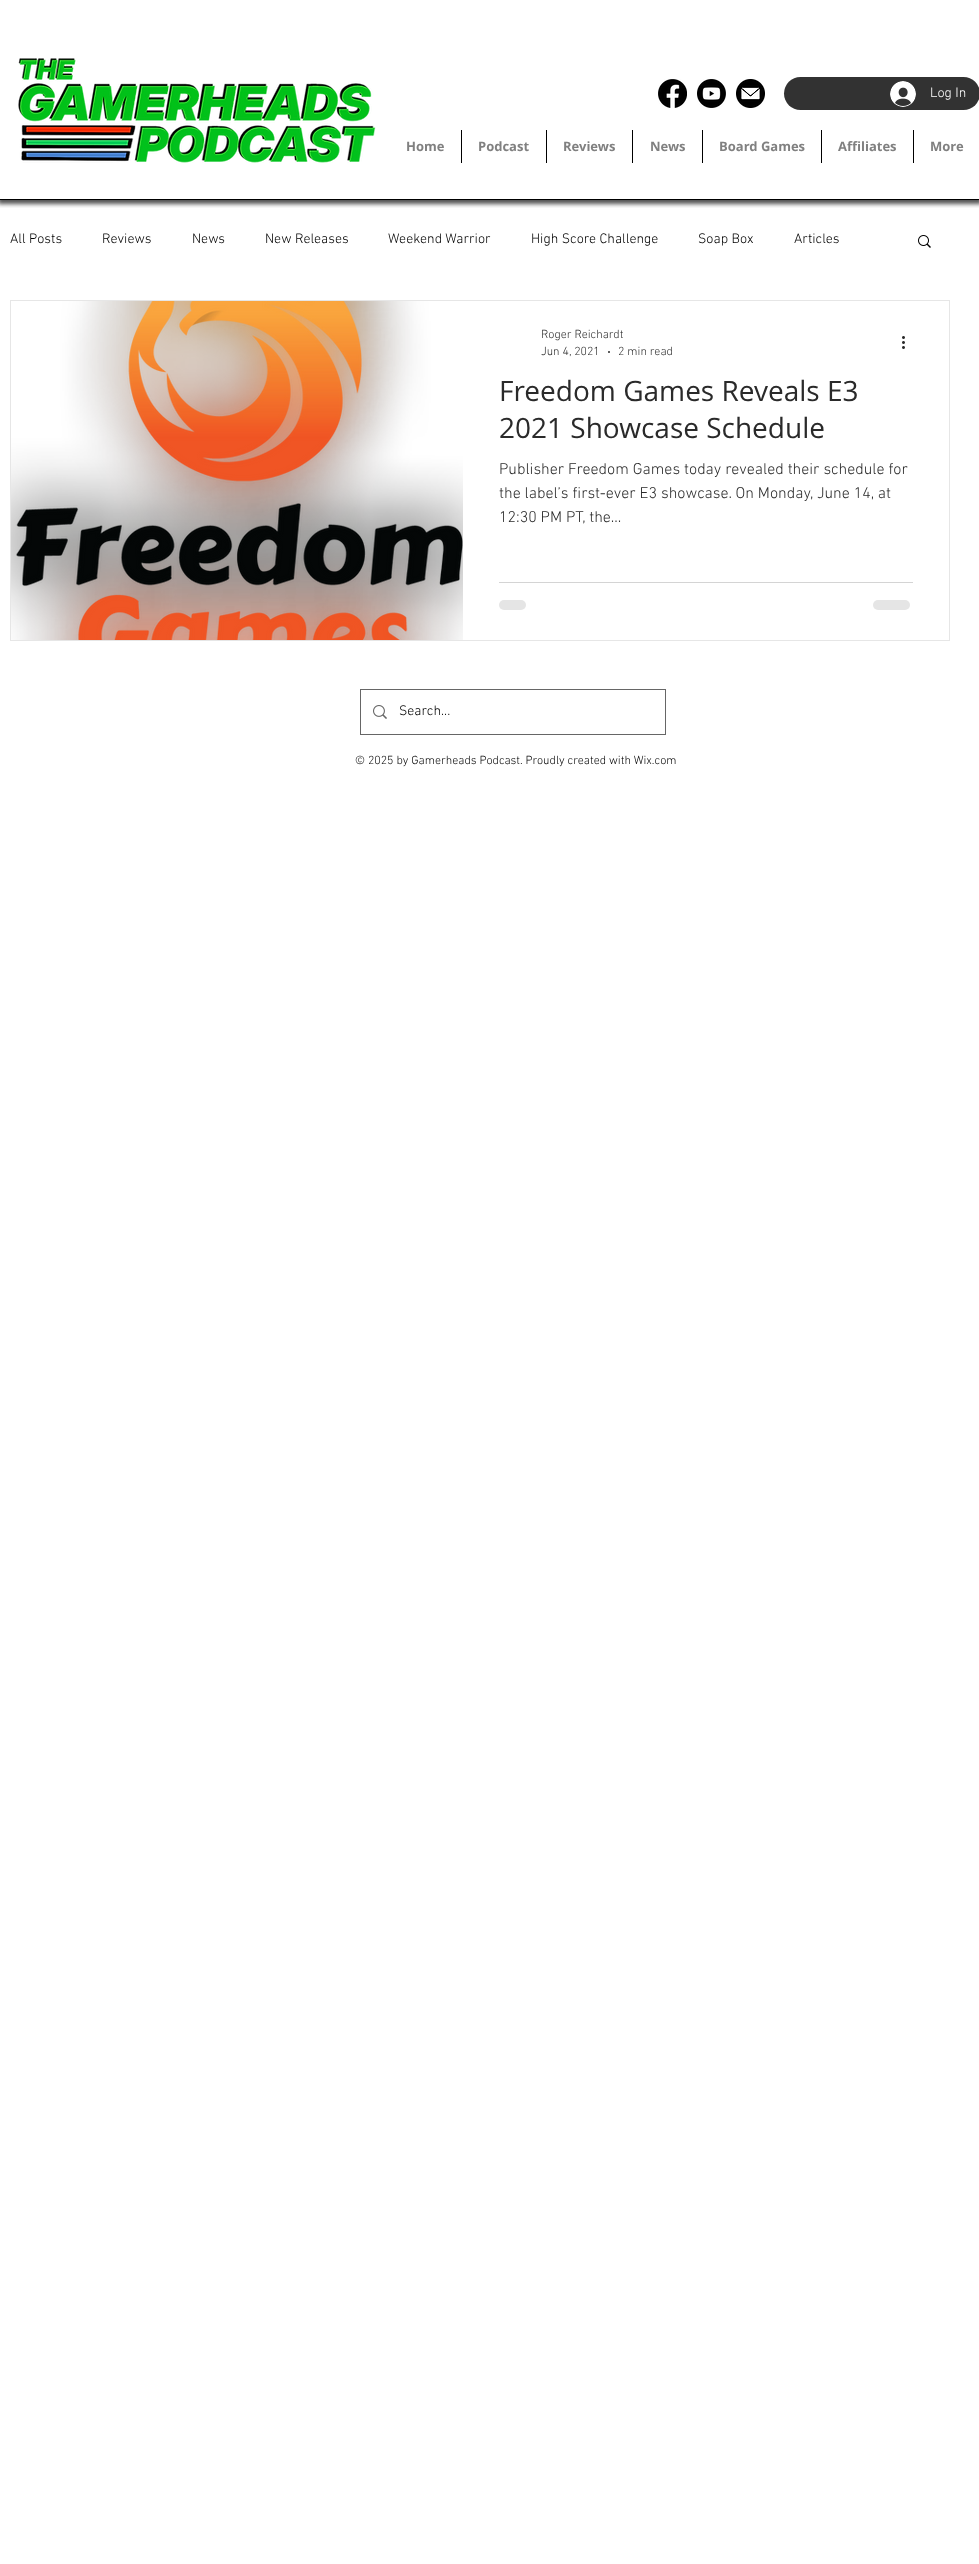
<svg xmlns="http://www.w3.org/2000/svg" xmlns:xlink="http://www.w3.org/1999/xlink" width="979" height="2564" viewBox="0 0 979 2564">
<style>
.cls-1{font:300 14px 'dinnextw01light';fill:#ffffff}
.cls-2{font:bold 13px Open Sans;fill:#808080}
.cls-3{font:300 14px 'dinnextw01light';fill:#000000}
.cls-4{font:300 12px 'dinnextw01light';fill:#2a2a2a}
.cls-5{font:28px Open Sans;fill:#2a2a2a}
.cls-6{font:300 16px 'dinnextw01light';fill:#2a2a2a}
.cls-7{font:300 12px 'dinnextw01light';fill:#000000}
</style>
<defs>
<clipPath id="clip1"><rect x="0" y="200" width="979" height="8"/></clipPath>
</defs>
<rect width="100%" height="100%" fill="#ffffff"/>
<g clip-path="url(#clip1)">
<rect fill="#000000" fill-opacity="0.68" filter="blur(2px)" x="-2" y="0" width="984" height="204"/>
</g>
<rect fill="#000000" x="0" y="199" width="979" height="1"/>
<image xlink:href="image0.png" x="18" y="58" width="358" height="105"/>
<image xlink:href="image1.png" x="658" y="79" width="29" height="29"/>
<image xlink:href="image2.png" x="697" y="79" width="29" height="29"/>
<image xlink:href="image3.png" x="736" y="79" width="29" height="29"/>
<rect fill="#323232" x="784" y="77" width="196" height="33" rx="16.5"/>
<image xlink:href="image4.png" x="890" y="81" width="26" height="26"/>
<rect fill="#000000" x="461" y="130" width="1" height="33"/>
<rect fill="#000000" x="546" y="130" width="1" height="33"/>
<rect fill="#000000" x="632" y="130" width="1" height="33"/>
<rect fill="#000000" x="702" y="130" width="1" height="33"/>
<rect fill="#000000" x="821" y="130" width="1" height="33"/>
<rect fill="#000000" x="913" y="130" width="1" height="33"/>
<image xlink:href="image5.png" x="918" y="235" width="13" height="13"/>
<rect fill="none" stroke="#e6e6e6" x="10.5" y="300.5" width="939" height="340"/>
<image xlink:href="image6.png" x="11" y="301" width="452" height="339"/>
<image xlink:href="image7.png" x="16" y="301" width="447" height="339"/>
<circle fill="#2a2a2a" cx="609" cy="352" r="1"/>
<image xlink:href="image8.png" x="902" y="336" width="3" height="13"/>
<rect fill="#d4d4d4" x="499" y="582" width="414" height="1"/>
<rect fill="#e5e5e5" x="499" y="600" width="27" height="10" rx="5"/>
<rect fill="#e5e5e5" x="873" y="600" width="37" height="10" rx="5"/>
<rect fill="none" stroke="#666666" x="360.5" y="689.5" width="305" height="45"/>
<image xlink:href="image9.png" x="373" y="705" width="14" height="14"/>
<text class="cls-1" x="930" y="97">Log In</text>
<text class="cls-2" x="406" y="151">Home</text>
<text class="cls-2" x="478" y="151">Podcast</text>
<text class="cls-2" x="563" y="151">Reviews</text>
<text class="cls-2" x="650" y="151">News</text>
<text class="cls-2" x="719" y="151">Board Games</text>
<text class="cls-2" x="838" y="151">Affiliates</text>
<text class="cls-2" x="930" y="151">More</text>
<text class="cls-3" x="10" y="243">All Posts</text>
<text class="cls-3" x="102" y="243">Reviews</text>
<text class="cls-3" x="192" y="243">News</text>
<text class="cls-3" x="265" y="243">New Releases</text>
<text class="cls-3" x="388" y="243">Weekend Warrior</text>
<text class="cls-3" x="531" y="243">High Score Challenge</text>
<text class="cls-3" x="698" y="243">Soap Box</text>
<text class="cls-3" x="794" y="243">Articles</text>
<text class="cls-4"><tspan x="541" y="338">Roger Reichardt</tspan><tspan x="541" y="355">Jun 4, 2021</tspan></text>
<text class="cls-4" x="618" y="355">2 min read</text>
<text class="cls-5"><tspan x="499" y="401">Freedom Games Reveals E3</tspan><tspan x="499" y="438">2021 Showcase Schedule</tspan></text>
<text class="cls-6"><tspan x="499" y="474">Publisher Freedom Games today revealed their schedule for</tspan><tspan x="499" y="498">the label’s first-ever E3 showcase. On Monday, June 14, at</tspan><tspan x="499" y="522">12:30 PM PT, the...</tspan></text>
<text class="cls-3" x="399" y="715">Search...</text>
<text class="cls-7" x="355" y="764">© 2025 by Gamerheads Podcast. Proudly created with Wix.com</text>
</svg>
